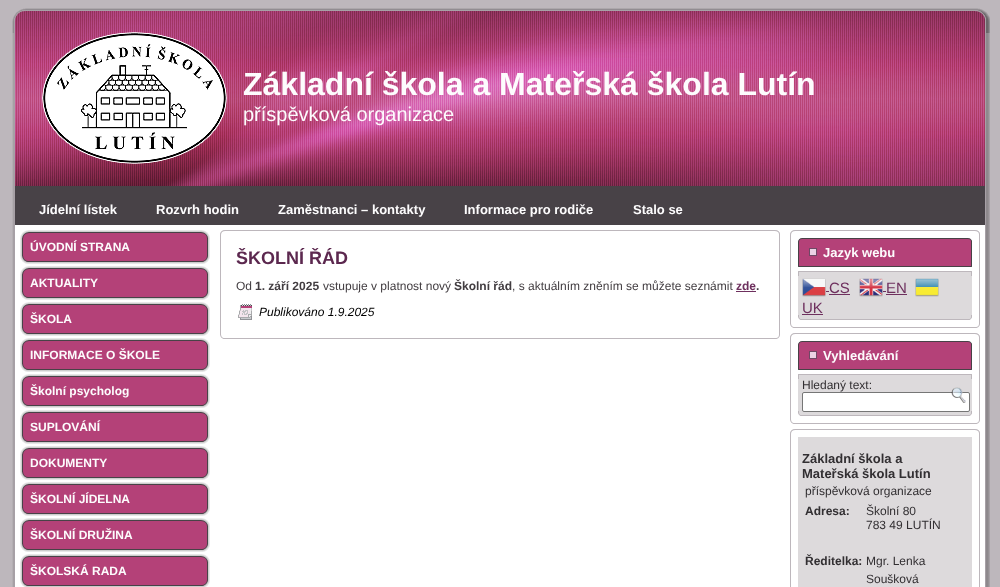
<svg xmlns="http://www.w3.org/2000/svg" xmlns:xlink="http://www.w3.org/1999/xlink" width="1000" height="587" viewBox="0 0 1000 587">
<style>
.cls-1{font:bold 32px Liberation Sans;fill:#fdfcfd}
.cls-2{font:20px Liberation Sans;fill:#fdfcfd}
.cls-3{font:bold 13px Liberation Sans;fill:#fdfcfd}
.cls-4{font:bold 12px Liberation Sans;fill:#fdfcfd}
.cls-5{font:bold 18px Liberation Sans;fill:#5c284f}
.cls-6{font:12px Liberation Sans;fill:#423d41}
.cls-7{font:bold 12px Liberation Sans;fill:#423d41}
.cls-8{font:bold 12px Liberation Sans;fill:#6e305e}
.cls-9{font:italic 12px Liberation Sans;fill:#000000}
.cls-10{font:15px Liberation Sans;fill:#6e305e}
.cls-11{font:12px Liberation Sans;fill:#322f32}
.cls-12{font:bold 13px Liberation Sans;fill:#322f32}
.cls-13{font:bold 12px Liberation Sans;fill:#322f32}
</style>
<rect width="100%" height="100%" fill="#bdb7bc"/>
<image xlink:href="image0.png" x="12" y="8" width="951" height="25"/>
<image xlink:href="image1.png" x="12" y="8" width="951" height="25"/>
<image xlink:href="image2.png" x="963" y="8" width="27" height="25"/>
<image xlink:href="image3.png" x="963" y="8" width="27" height="25"/>
<image xlink:href="image4.png" x="12" y="33" width="951" height="554"/>
<image xlink:href="image5.png" x="963" y="33" width="27" height="554"/>
<image xlink:href="image6.png" x="15" y="11" width="970" height="175"/>
<image xlink:href="image7.png" x="25" y="11" width="949" height="175"/>
<image xlink:href="image8.png" x="42" y="32" width="185" height="132"/>
<rect fill="#484247" x="15" y="186" width="970" height="39"/>
<image xlink:href="image9.png" x="20" y="230" width="179" height="34"/>
<image xlink:href="image10.png" x="199" y="230" width="11" height="34"/>
<image xlink:href="image9.png" x="20" y="266" width="179" height="34"/>
<image xlink:href="image10.png" x="199" y="266" width="11" height="34"/>
<image xlink:href="image9.png" x="20" y="302" width="179" height="34"/>
<image xlink:href="image10.png" x="199" y="302" width="11" height="34"/>
<image xlink:href="image9.png" x="20" y="338" width="179" height="34"/>
<image xlink:href="image10.png" x="199" y="338" width="11" height="34"/>
<image xlink:href="image9.png" x="20" y="374" width="179" height="34"/>
<image xlink:href="image10.png" x="199" y="374" width="11" height="34"/>
<image xlink:href="image9.png" x="20" y="410" width="179" height="34"/>
<image xlink:href="image10.png" x="199" y="410" width="11" height="34"/>
<image xlink:href="image9.png" x="20" y="446" width="179" height="34"/>
<image xlink:href="image10.png" x="199" y="446" width="11" height="34"/>
<image xlink:href="image9.png" x="20" y="482" width="179" height="34"/>
<image xlink:href="image10.png" x="199" y="482" width="11" height="34"/>
<image xlink:href="image9.png" x="20" y="518" width="179" height="34"/>
<image xlink:href="image10.png" x="199" y="518" width="11" height="34"/>
<image xlink:href="image11.png" x="20" y="554" width="179" height="33"/>
<image xlink:href="image12.png" x="199" y="554" width="11" height="33"/>
<image xlink:href="image13.png" x="220" y="230" width="555" height="109"/>
<image xlink:href="image14.png" x="220" y="230" width="5" height="4"/>
<rect fill="#bdb7bc" x="779" y="235" width="1" height="99"/>
<image xlink:href="image15.png" x="775" y="230" width="5" height="109"/>
<image xlink:href="image16.png" x="775" y="230" width="5" height="4"/>
<rect fill="#bdb7bc" x="220" y="235" width="1" height="99"/>
<rect fill="#6e305e" x="736" y="291" width="20" height="1"/>
<image xlink:href="image17.png" x="238" y="304" width="14" height="16"/>
<image xlink:href="image18.png" x="790" y="230" width="185" height="98"/>
<image xlink:href="image14.png" x="790" y="230" width="5" height="4"/>
<rect fill="#bdb7bc" x="979" y="235" width="1" height="88"/>
<image xlink:href="image19.png" x="975" y="230" width="5" height="98"/>
<image xlink:href="image16.png" x="975" y="230" width="5" height="4"/>
<rect fill="#bdb7bc" x="790" y="235" width="1" height="88"/>
<image xlink:href="image20.png" x="798" y="238" width="155" height="29"/>
<image xlink:href="image21.png" x="953" y="238" width="19" height="29"/>
<image xlink:href="image22.png" x="798" y="271" width="169" height="49"/>
<rect fill="#bfbabe" x="798" y="271" width="1" height="1"/>
<rect fill="#dddadc" x="798" y="276" width="174" height="39"/>
<image xlink:href="image23.png" x="967" y="271" width="5" height="49"/>
<rect fill="#bfbabe" x="971" y="271" width="1" height="1"/>
<image xlink:href="image24.png" x="802" y="278" width="24" height="19"/>
<rect fill="#6e305e" x="826" y="291" width="3" height="1"/>
<rect fill="#6e305e" x="829" y="294" width="21" height="1"/>
<image xlink:href="image25.png" x="859" y="278" width="24" height="19"/>
<rect fill="#6e305e" x="883" y="291" width="3" height="1"/>
<rect fill="#6e305e" x="886" y="294" width="21" height="1"/>
<image xlink:href="image26.png" x="915" y="278" width="24" height="19"/>
<rect fill="#6e305e" x="802" y="314" width="21" height="1"/>
<image xlink:href="image27.png" x="790" y="333" width="185" height="91"/>
<image xlink:href="image14.png" x="790" y="333" width="5" height="4"/>
<rect fill="#bdb7bc" x="979" y="338" width="1" height="81"/>
<image xlink:href="image28.png" x="975" y="333" width="5" height="91"/>
<image xlink:href="image16.png" x="975" y="333" width="5" height="4"/>
<rect fill="#bdb7bc" x="790" y="338" width="1" height="81"/>
<image xlink:href="image20.png" x="798" y="341" width="155" height="29"/>
<image xlink:href="image21.png" x="953" y="341" width="19" height="29"/>
<image xlink:href="image29.png" x="798" y="374" width="169" height="42"/>
<rect fill="#bfbabe" x="798" y="374" width="1" height="1"/>
<rect fill="#dddadc" x="798" y="379" width="174" height="32"/>
<image xlink:href="image30.png" x="967" y="374" width="5" height="42"/>
<rect fill="#bfbabe" x="971" y="374" width="1" height="1"/>
<rect fill="#ffffff" stroke="#767676" x="802.5" y="392.5" width="167" height="19" rx="1.5"/>
<image xlink:href="image31.png" x="951" y="387" width="15" height="16"/>
<image xlink:href="image32.png" x="790" y="429" width="185" height="5"/>
<image xlink:href="image14.png" x="790" y="429" width="5" height="4"/>
<image xlink:href="image33.png" x="975" y="429" width="5" height="5"/>
<image xlink:href="image16.png" x="975" y="429" width="5" height="4"/>
<rect fill="#bdb7bc" x="790" y="434" width="1" height="153"/>
<rect fill="#dddadc" x="798" y="437" width="169" height="150"/>
<rect fill="#dddadc" x="967" y="437" width="5" height="150"/>
<rect fill="#bdb7bc" x="979" y="434" width="1" height="153"/>
<text class="cls-1" x="243" y="95">Základní škola a Mateřská škola Lutín</text>
<text class="cls-2" x="243" y="121">příspěvková organizace</text>
<text class="cls-3" x="39" y="214">Jídelní lístek</text>
<text class="cls-3" x="156" y="214">Rozvrh hodin</text>
<text class="cls-3" x="278" y="214">Zaměstnanci – kontakty</text>
<text class="cls-3" x="464" y="214">Informace pro rodiče</text>
<text class="cls-3" x="633" y="214">Stalo se</text>
<text class="cls-4" x="30" y="251">ÚVODNÍ STRANA</text>
<text class="cls-4" x="30" y="287">AKTUALITY</text>
<text class="cls-4" x="30" y="323">ŠKOLA</text>
<text class="cls-4" x="30" y="359">INFORMACE O ŠKOLE</text>
<text class="cls-4" x="30" y="395">Školní psycholog</text>
<text class="cls-4" x="30" y="431">SUPLOVÁNÍ</text>
<text class="cls-4" x="30" y="467">DOKUMENTY</text>
<text class="cls-4" x="30" y="503">ŠKOLNÍ JÍDELNA</text>
<text class="cls-4" x="30" y="539">ŠKOLNÍ DRUŽINA</text>
<text class="cls-4" x="30" y="575">ŠKOLSKÁ RADA</text>
<text class="cls-5" x="236" y="264">ŠKOLNÍ ŘÁD</text>
<text class="cls-6" x="236" y="290">Od</text>
<text class="cls-7" x="255" y="290">1. září 2025</text>
<text class="cls-6" x="323" y="290">vstupuje v platnost nový</text>
<text class="cls-7" x="454" y="290">Školní řád</text>
<text class="cls-6" x="512" y="290">, s aktuálním zněním se můžete seznámit</text>
<text class="cls-8" x="736" y="290">zde</text>
<text class="cls-7" x="756" y="290">.</text>
<text class="cls-9" x="259" y="316">Publikováno 1.9.2025</text>
<text class="cls-3" x="823" y="257">Jazyk webu</text>
<text class="cls-10" x="829" y="293">CS</text>
<text class="cls-10" x="886" y="293">EN</text>
<text class="cls-10" x="802" y="313">UK</text>
<text class="cls-3" x="823" y="360">Vyhledávání</text>
<text class="cls-11" x="802" y="389">Hledaný text:</text>
<text class="cls-12"><tspan x="802" y="463">Základní škola a</tspan><tspan x="802" y="478">Mateřská škola Lutín</tspan></text>
<text class="cls-11" x="805" y="495">příspěvková organizace</text>
<text class="cls-13" x="805" y="515">Adresa:</text>
<text class="cls-11"><tspan x="866" y="515">Školní 80</tspan><tspan x="866" y="529">783 49 LUTÍN</tspan></text>
<text class="cls-13" x="805" y="565">Ředitelka:</text>
<text class="cls-11"><tspan x="866" y="565">Mgr. Lenka</tspan><tspan x="866" y="583">Soušková</tspan></text>
</svg>
